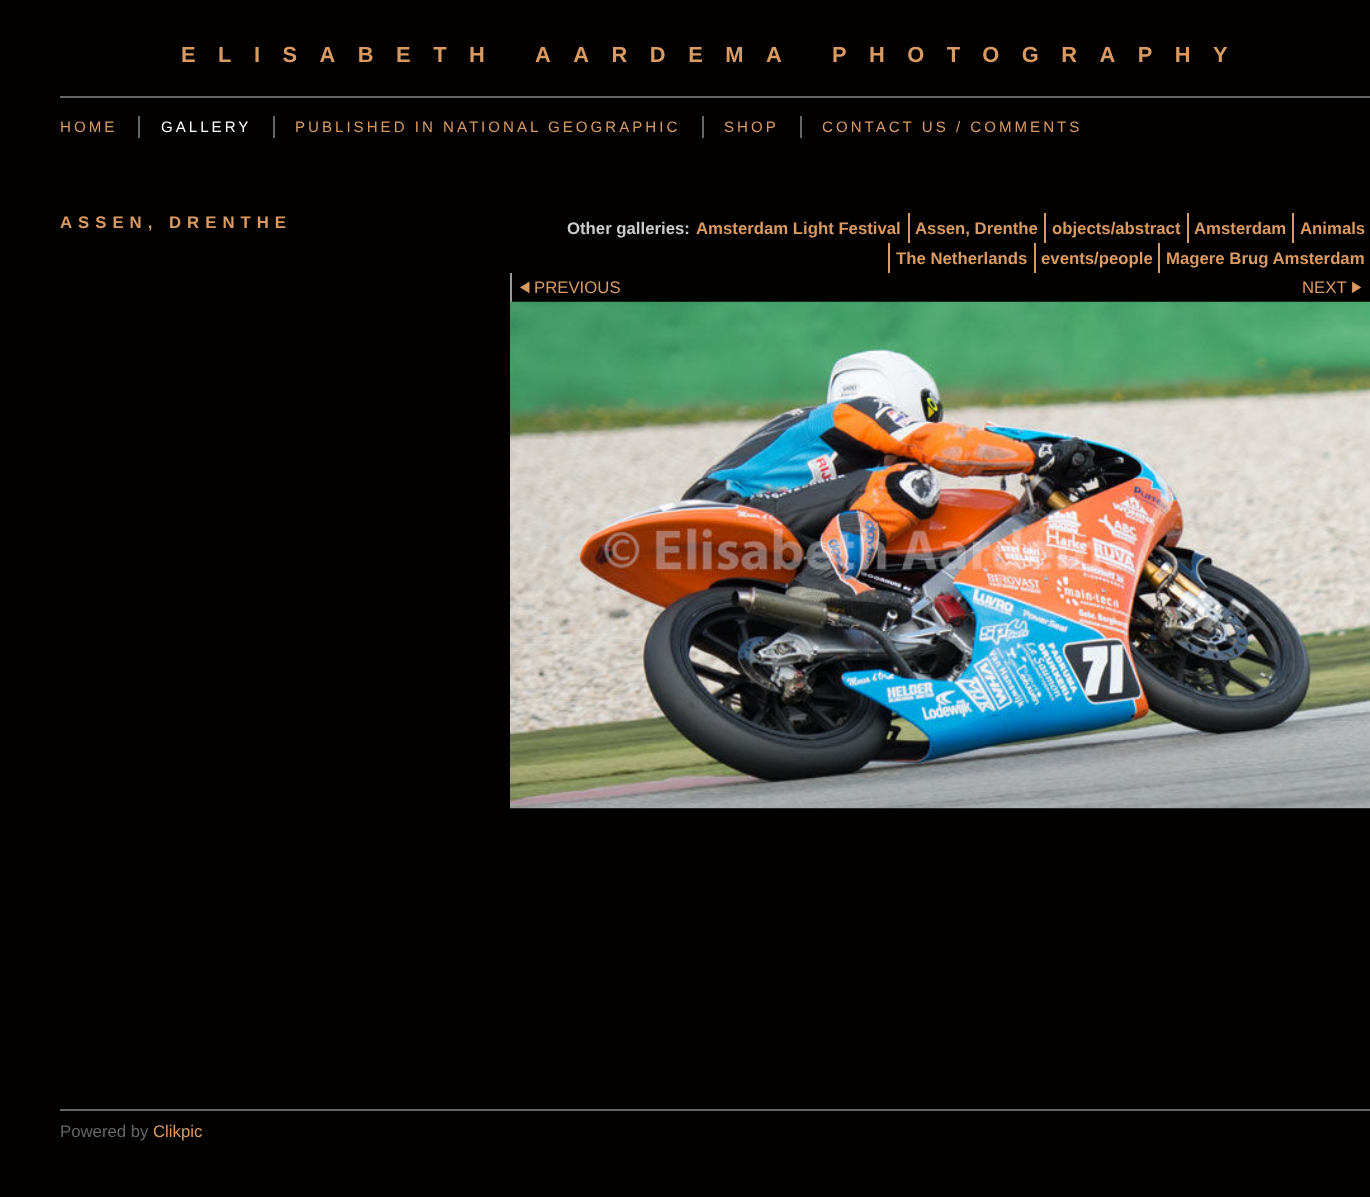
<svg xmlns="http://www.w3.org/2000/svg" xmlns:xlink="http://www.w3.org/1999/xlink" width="1370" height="1197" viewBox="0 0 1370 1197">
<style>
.cls-1{font:bold 21.85px Liberation Sans;letter-spacing:22.5px;fill:#da9b62}
.cls-2{font:15.1px Liberation Sans;letter-spacing:3px;fill:#da9b62}
.cls-3{font:15.1px Liberation Sans;letter-spacing:3px;fill:#ffffff}
.cls-4{font:bold 16.75px Liberation Sans;letter-spacing:6px;fill:#da9b62}
.cls-5{font:bold 16.75px Liberation Sans;fill:#cccccc}
.cls-6{font:bold 16.75px Liberation Sans;fill:#da9b62}
.cls-7{font:16.75px Liberation Sans;fill:#da9b62}
.cls-8{font:16.75px Liberation Sans;fill:#666666}
</style>
<rect width="100%" height="100%" fill="#030000"/>
<rect fill="#666666" x="60" y="96" width="1310" height="2"/>
<rect fill="#666666" x="138" y="116" width="2" height="22"/>
<rect fill="#666666" x="273" y="116" width="2" height="22"/>
<rect fill="#666666" x="702" y="116" width="2" height="22"/>
<rect fill="#666666" x="800" y="116" width="2" height="22"/>
<rect fill="#da9b62" x="908" y="213" width="2" height="30"/>
<rect fill="#da9b62" x="1044" y="213" width="2" height="30"/>
<rect fill="#da9b62" x="1187" y="213" width="2" height="30"/>
<rect fill="#da9b62" x="1292" y="213" width="2" height="30"/>
<rect fill="#da9b62" x="888" y="243" width="2" height="30"/>
<rect fill="#da9b62" x="1034" y="243" width="2" height="30"/>
<rect fill="#da9b62" x="1158" y="243" width="2" height="30"/>
<rect fill="#999999" x="510" y="273" width="2" height="29"/>
<image xlink:href="image0.png" x="520" y="281" width="10" height="13"/>
<image xlink:href="image1.png" x="1351" y="281" width="11" height="13"/>
<image xlink:href="image2.png" x="510" y="301" width="860" height="508"/>
<rect fill="#666666" x="60" y="1109" width="1310" height="2"/>
<text class="cls-1" x="181" y="62">ELISABETH AARDEMA PHOTOGRAPHY</text>
<text class="cls-2" x="60" y="132">HOME</text>
<text class="cls-3" x="161" y="132">GALLERY</text>
<text class="cls-2" x="295" y="132">PUBLISHED IN NATIONAL GEOGRAPHIC</text>
<text class="cls-2" x="724" y="132">SHOP</text>
<text class="cls-2" x="822" y="132">CONTACT US / COMMENTS</text>
<text class="cls-4" x="60" y="228">ASSEN, DRENTHE</text>
<text class="cls-5" x="567" y="234">Other galleries:</text>
<text class="cls-6" x="696" y="234">Amsterdam Light Festival</text>
<text class="cls-6" x="915" y="234">Assen, Drenthe</text>
<text class="cls-6" x="1052" y="234">objects/abstract</text>
<text class="cls-6" x="1194" y="234">Amsterdam</text>
<text class="cls-6" x="1300" y="234">Animals</text>
<text class="cls-6" x="896" y="264">The Netherlands</text>
<text class="cls-6" x="1041" y="264">events/people</text>
<text class="cls-6" x="1166" y="264">Magere Brug Amsterdam</text>
<text class="cls-7" x="534" y="293">PREVIOUS</text>
<text class="cls-7" x="1302" y="293">NEXT</text>
<text class="cls-8" x="60" y="1137">Powered by</text>
<text class="cls-7" x="153" y="1137">Clikpic</text>
</svg>
